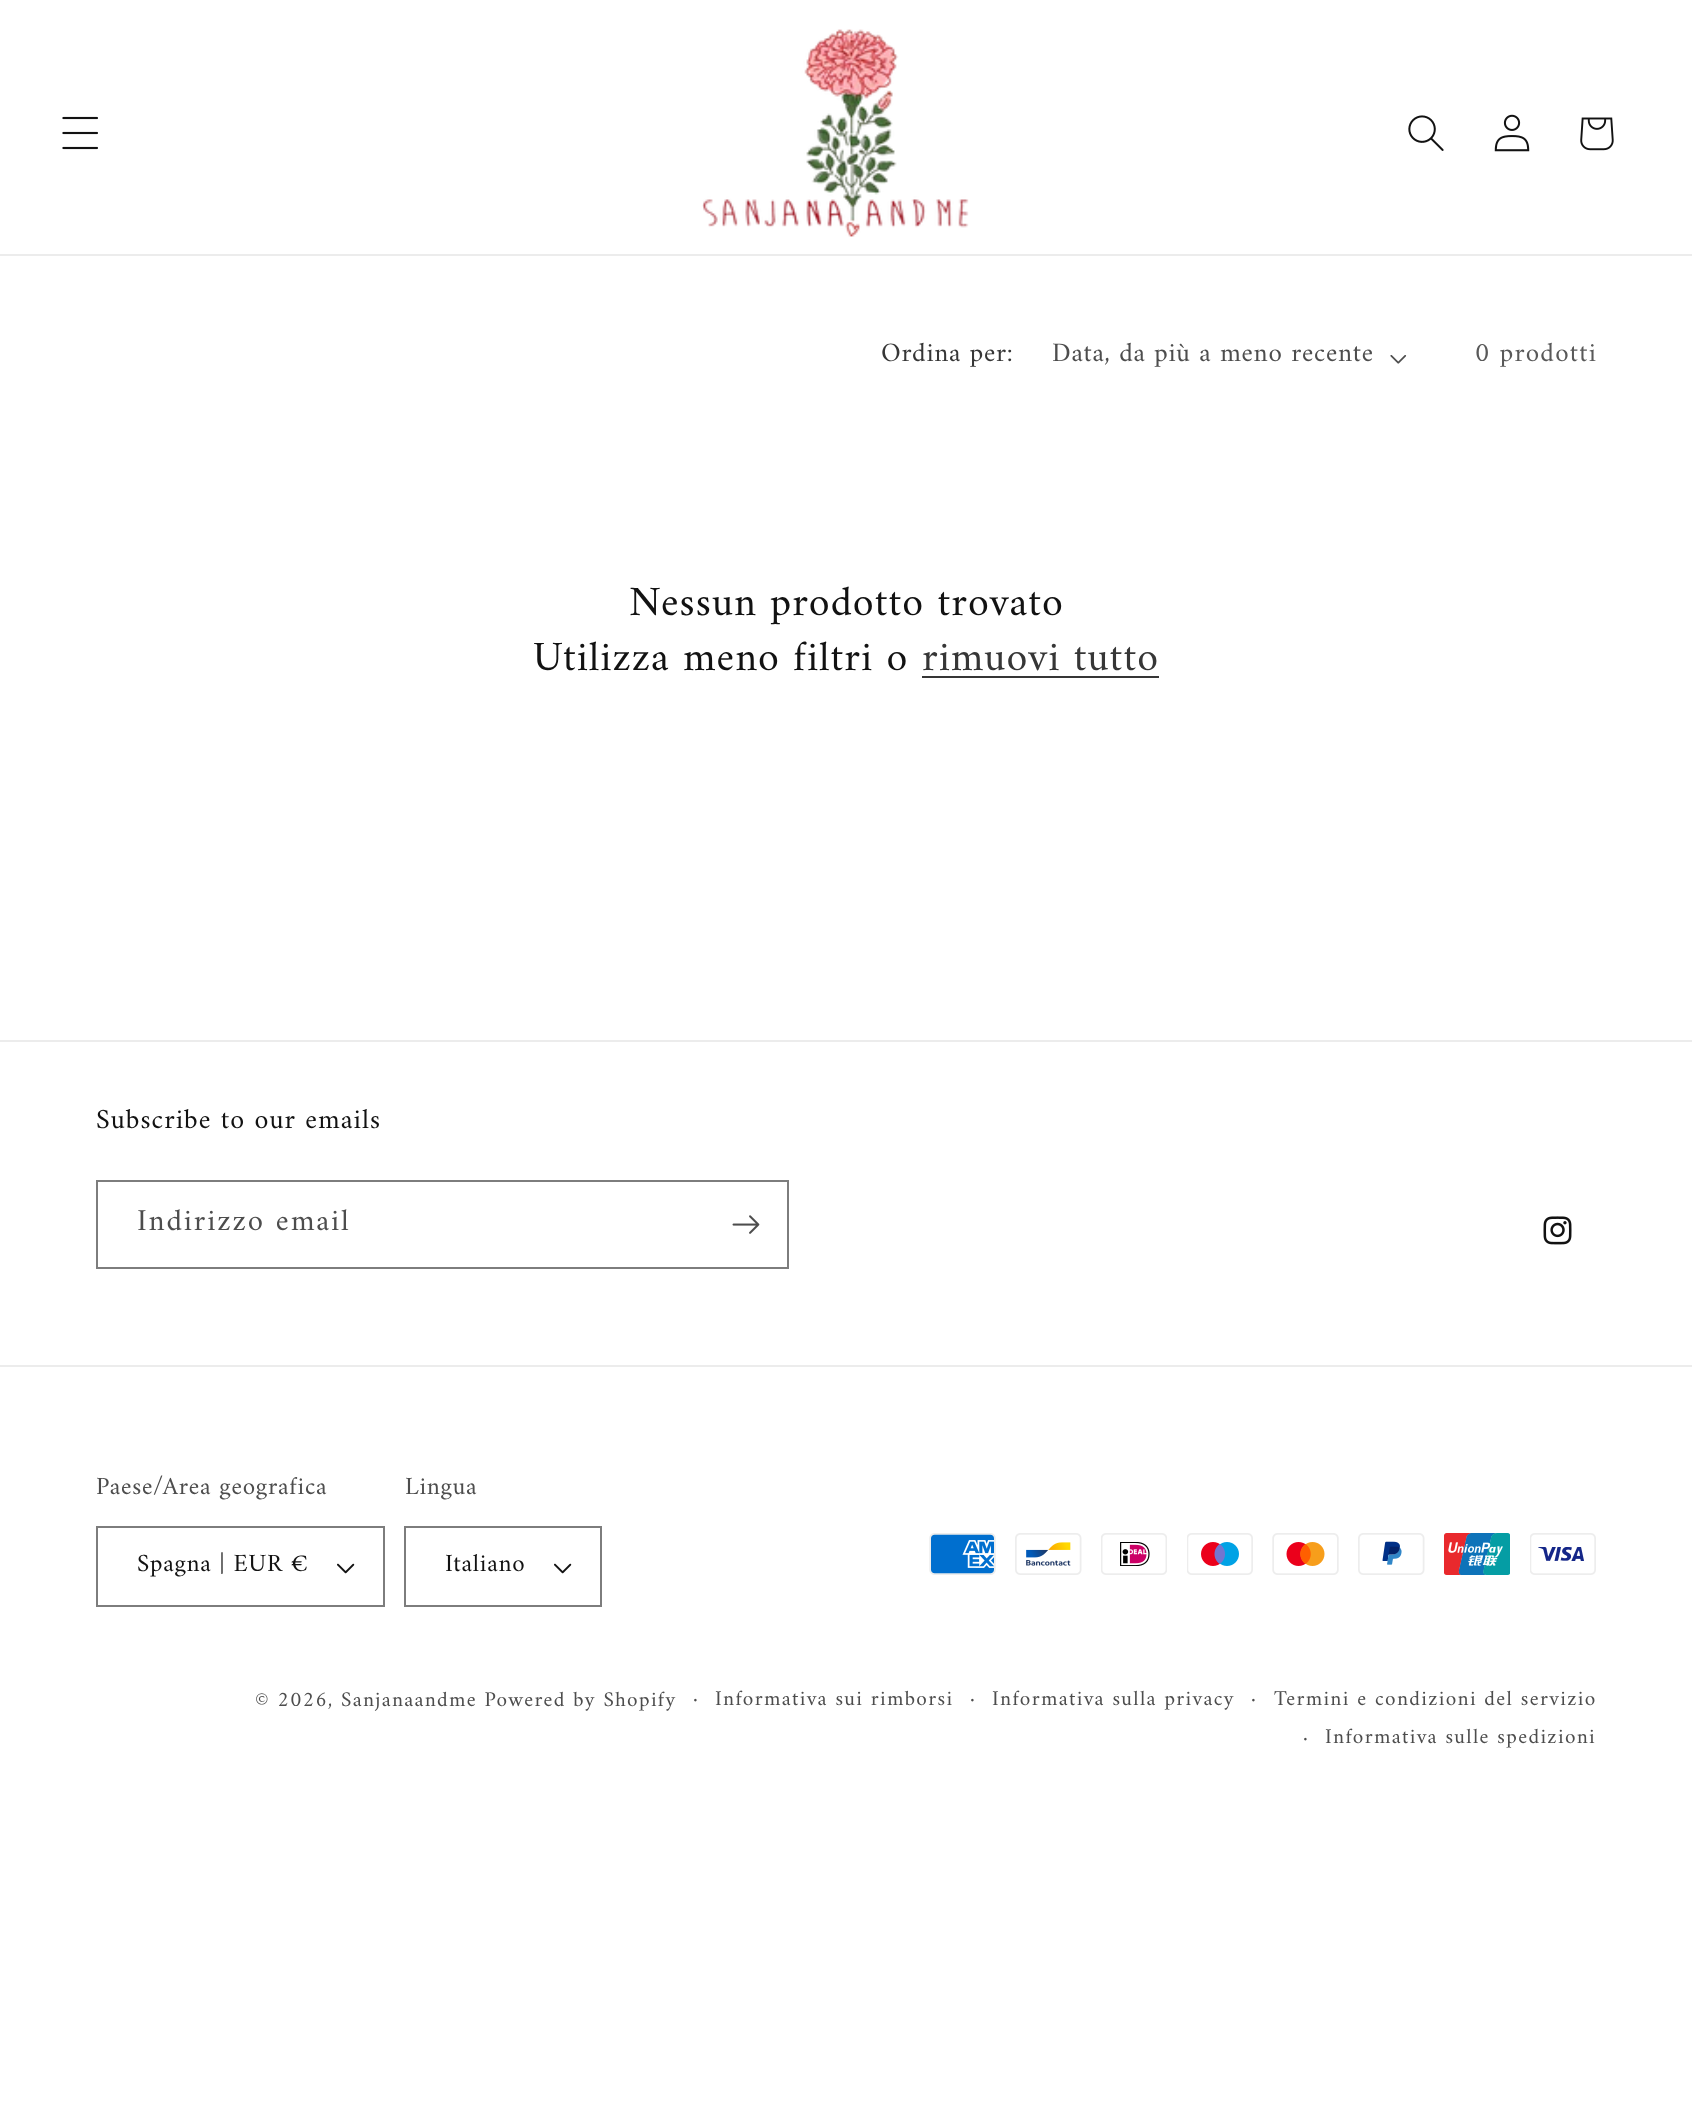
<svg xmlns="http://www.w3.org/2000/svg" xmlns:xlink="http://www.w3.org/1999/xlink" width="1692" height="2118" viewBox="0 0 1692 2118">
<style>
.cls-1{font:27px Amiri;letter-spacing:0.75px;fill:#363636}
.cls-2{font:27px Amiri;letter-spacing:0.75px;fill:#4d4d4d}
.cls-3{font:27px Amiri;letter-spacing:1.25px;fill:#595959}
.cls-4{font:42px Amiri;letter-spacing:1.05px;fill:#121212}
.cls-5{font:42px Amiri;letter-spacing:1.05px;fill:#363636}
.cls-6{font:28px Amiri;letter-spacing:1.05px;fill:#121212}
.cls-7{font:30.75px Amiri;letter-spacing:1.9px;fill:#4d4d4d}
.cls-8{font:25px Amiri;letter-spacing:0.75px;fill:#4d4d4d}
.cls-9{font:25px Amiri;letter-spacing:0.75px;fill:#121212}
.cls-10{font:21.2px Amiri;letter-spacing:1.35px;fill:#4d4d4d}
.cls-11{font:23px Amiri;letter-spacing:1.35px;fill:#4d4d4d}
</style>
<rect width="100%" height="100%" fill="#ffffff"/>
<rect fill="#ececec" x="0" y="254" width="1692" height="2"/>
<image xlink:href="image0.png" x="62" y="116" width="36" height="34"/>
<image xlink:href="image1.png" x="702" y="29" width="267" height="208"/>
<image xlink:href="image2.png" x="1408" y="115" width="36" height="36"/>
<image xlink:href="image3.png" x="1494" y="114" width="36" height="38"/>
<image xlink:href="image4.png" x="1580" y="117" width="34" height="34"/>
<image xlink:href="image5.png" x="1390" y="355" width="17" height="9"/>
<rect fill="#363636" x="922" y="676" width="237" height="2"/>
<rect fill="#ececec" x="0" y="1040" width="1692" height="2"/>
<rect fill="none" stroke="#7d7d7d" stroke-width="2" x="97" y="1181" width="691" height="87"/>
<image xlink:href="image6.png" x="732" y="1215" width="28" height="19"/>
<image xlink:href="image7.png" x="1543" y="1216" width="29" height="29"/>
<rect fill="#ececec" x="0" y="1365" width="1692" height="2"/>
<image xlink:href="image8.png" x="337" y="1563" width="18" height="11"/>
<rect fill="none" stroke="#7d7d7d" stroke-width="2" x="97" y="1527" width="287" height="79"/>
<image xlink:href="image8.png" x="554" y="1563" width="18" height="11"/>
<rect fill="none" stroke="#7d7d7d" stroke-width="2" x="405" y="1527" width="196" height="79"/>
<image xlink:href="image9.png" x="929" y="1533" width="67" height="42"/>
<image xlink:href="image10.png" x="1015" y="1533" width="67" height="42"/>
<image xlink:href="image11.png" x="1101" y="1533" width="66" height="42"/>
<image xlink:href="image12.png" x="1187" y="1533" width="66" height="42"/>
<image xlink:href="image13.png" x="1272" y="1533" width="67" height="42"/>
<image xlink:href="image14.png" x="1358" y="1533" width="67" height="42"/>
<image xlink:href="image15.png" x="1444" y="1533" width="66" height="42"/>
<image xlink:href="image16.png" x="1530" y="1533" width="66" height="42"/>
<text class="cls-1" x="881" y="361">Ordina per:</text>
<text class="cls-2" x="1052" y="361">Data, da più a meno recente</text>
<text class="cls-3" x="1475" y="361">0 prodotti</text>
<text class="cls-4" x="629" y="615">Nessun prodotto trovato</text>
<text class="cls-4" x="533" y="670">Utilizza meno filtri o</text>
<text class="cls-5" x="922" y="670">rimuovi tutto</text>
<text class="cls-6" x="96" y="1128">Subscribe to our emails</text>
<text class="cls-7" x="137" y="1230">Indirizzo email</text>
<text class="cls-8" x="96" y="1494">Paese/Area geografica</text>
<text class="cls-9" x="137" y="1571">Spagna | EUR €</text>
<text class="cls-8" x="405" y="1494">Lingua</text>
<text class="cls-9" x="445" y="1571">Italiano</text>
<text class="cls-10" x="255" y="1706">© 2026, Sanjanaandme Powered by Shopify</text>
<text class="cls-11" x="692" y="1706">·</text>
<text class="cls-10" x="715" y="1705">Informativa sui rimborsi</text>
<text class="cls-11" x="969" y="1706">·</text>
<text class="cls-10" x="992" y="1705">Informativa sulla privacy</text>
<text class="cls-11" x="1250" y="1706">·</text>
<text class="cls-10" x="1274" y="1705">Termini e condizioni del servizio</text>
<text class="cls-11" x="1302" y="1745">·</text>
<text class="cls-10" x="1325" y="1743">Informativa sulle spedizioni</text>
</svg>
